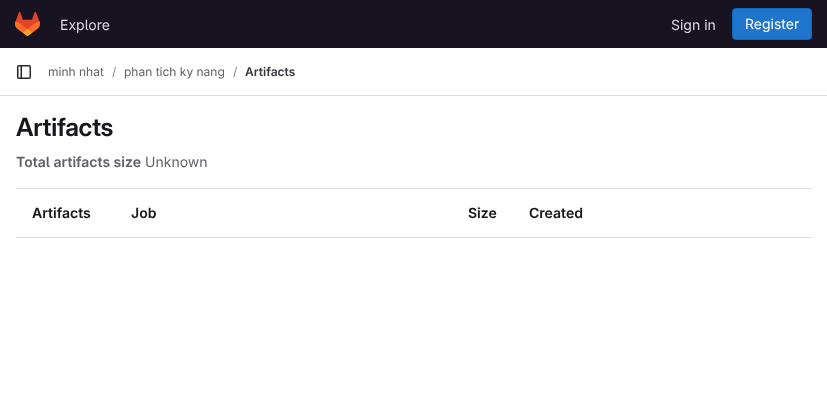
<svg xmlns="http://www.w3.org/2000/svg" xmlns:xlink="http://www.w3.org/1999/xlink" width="827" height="416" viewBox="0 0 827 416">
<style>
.cls-1{font:14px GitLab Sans;fill:#dcdcde}
.cls-2{font:14px GitLab Sans;fill:#ffffff}
.cls-3{font:12px GitLab Sans;fill:#626168}
.cls-4{font:12px GitLab Sans;fill:#89888d}
.cls-5{font:600 12px 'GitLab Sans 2';fill:#3a383f}
.cls-6{font:600 25px GitLab Sans;letter-spacing:-0.25px;fill:#18171d}
.cls-7{font:600 14px 'GitLab Sans 2';fill:#626168}
.cls-8{font:14px GitLab Sans;fill:#626168}
.cls-9{font:600 14px 'GitLab Sans 2';fill:#18171d}
</style>
<rect width="100%" height="100%" fill="#ffffff"/>
<rect fill="#171321" x="0" y="0" width="827" height="48"/>
<image xlink:href="image0.png" x="15" y="12" width="25" height="24"/>
<rect fill="#1f75cb" stroke="#1068bf" x="732.5" y="8.5" width="79" height="31" rx="3.5"/>
<rect fill="#dcdcde" x="0" y="95" width="827" height="1"/>
<image xlink:href="image1.png" x="17" y="65" width="14" height="14"/>
<rect fill="#dcdcde" x="16" y="188" width="796" height="1"/>
<rect fill="#dcdcde" x="16" y="237" width="796" height="1"/>
<text class="cls-1" x="60" y="30">Explore</text>
<text class="cls-1" x="671" y="30">Sign in</text>
<text class="cls-2" x="745" y="29">Register</text>
<text class="cls-3" x="48" y="76">minh nhat</text>
<text class="cls-4" x="112" y="76">/</text>
<text class="cls-3" x="124" y="76">phan tich ky nang</text>
<text class="cls-4" x="233" y="76">/</text>
<text class="cls-5" x="245" y="76">Artifacts</text>
<text class="cls-6" x="16" y="136">Artifacts</text>
<text class="cls-7" x="16" y="167">Total artifacts size</text>
<text class="cls-8" x="145" y="167">Unknown</text>
<text class="cls-9" x="32" y="218">Artifacts</text>
<text class="cls-9" x="131" y="218">Job</text>
<text class="cls-9" x="468" y="218">Size</text>
<text class="cls-9" x="529" y="218">Created</text>
</svg>
